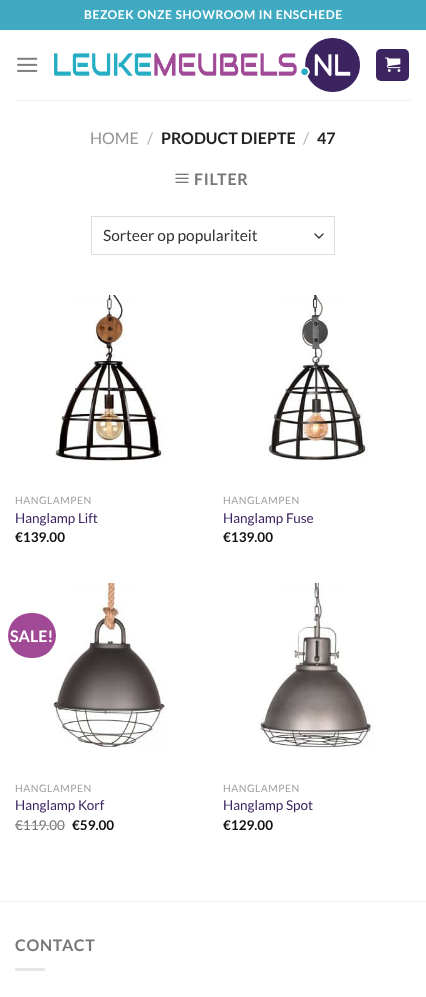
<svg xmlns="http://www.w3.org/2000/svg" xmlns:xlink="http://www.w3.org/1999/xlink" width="426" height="997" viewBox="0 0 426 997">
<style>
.cls-1{font:bold 12px Lato;letter-spacing:0.6px;fill:#ffffff}
.cls-2{font:16px Lato;fill:#949494}
.cls-3{font:16px Lato;fill:#b2b2b2}
.cls-4{font:bold 16px Lato;fill:#222222}
.cls-5{font:bold 16px Lato;letter-spacing:0.75px;fill:#777777}
.cls-6{font:15.5px Lato;fill:#333333}
.cls-7{font:10.25px Lato;letter-spacing:0.5px;fill:#a0a0a0}
.cls-8{font:13.5px Lato;fill:#3c2561}
.cls-9{font:bold 13.5px Lato;fill:#111111}
.cls-10{font:bold 16px Lato;fill:#ffffff}
.cls-11{font:13.5px Lato;fill:#707070}
</style>
<rect width="100%" height="100%" fill="#ffffff"/>
<rect fill="#40aac2" x="0" y="0" width="426" height="30"/>
<image xlink:href="image0.png" x="17" y="57" width="21" height="15"/>
<image xlink:href="image1.png" x="54" y="38" width="306" height="54"/>
<rect fill="#3c2561" x="376" y="49" width="33" height="32" rx="5"/>
<rect fill="none" stroke="#000000" stroke-opacity="0.05" x="376.5" y="49.5" width="32" height="31"/>
<image xlink:href="image2.png" x="385" y="57" width="16" height="15"/>
<rect fill="#f1f1f1" x="15" y="100" width="396" height="1"/>
<image xlink:href="image3.png" x="175" y="173" width="14" height="10"/>
<path fill="none" stroke="#333333" stroke-width="1.3" stroke-linecap="round" stroke-linejoin="round" d="M315 234L319 238L323 234"/>
<rect fill="none" stroke="#dddddd" x="91.5" y="216.5" width="243" height="38"/>
<image xlink:href="image4.png" x="55" y="295" width="110" height="167"/>
<image xlink:href="image5.png" x="268" y="295" width="100" height="166"/>
<image xlink:href="image6.png" x="50" y="583" width="116" height="166"/>
<rect fill="#a04a95" x="8" y="613" width="48" height="45" rx="22.5"/>
<image xlink:href="image7.png" x="258" y="583" width="116" height="166"/>
<rect fill="#f2f2f2" x="0" y="901" width="426" height="1"/>
<rect fill="#e6e6e6" x="15" y="968" width="30" height="3"/>
<text class="cls-1" x="84" y="19">BEZOEK ONZE SHOWROOM IN ENSCHEDE</text>
<text class="cls-2" x="90" y="144">HOME</text>
<text class="cls-3" x="147" y="144">/</text>
<text class="cls-4" x="161" y="144">PRODUCT DIEPTE</text>
<text class="cls-3" x="303" y="144">/</text>
<text class="cls-4" x="317" y="144">47</text>
<text class="cls-5" x="194" y="185">FILTER</text>
<text class="cls-6" x="103" y="241">Sorteer op populariteit</text>
<text class="cls-7" x="15" y="504">HANGLAMPEN</text>
<text class="cls-8" x="15" y="523">Hanglamp Lift</text>
<text class="cls-9" x="15" y="542">€139.00</text>
<text class="cls-7" x="223" y="504">HANGLAMPEN</text>
<text class="cls-8" x="223" y="523">Hanglamp Fuse</text>
<text class="cls-9" x="223" y="542">€139.00</text>
<text class="cls-10" x="10" y="642">SALE!</text>
<text class="cls-7" x="15" y="792">HANGLAMPEN</text>
<text class="cls-8" x="15" y="810">Hanglamp Korf</text>
<text class="cls-11" x="15" y="830">€119.00</text>
<rect fill="#adadad" x="15" y="825" width="50" height="1"/>
<text class="cls-9" x="72" y="830">€59.00</text>
<text class="cls-7" x="223" y="792">HANGLAMPEN</text>
<text class="cls-8" x="223" y="810">Hanglamp Spot</text>
<text class="cls-9" x="223" y="830">€129.00</text>
<text class="cls-5" x="15" y="951">CONTACT</text>
</svg>
